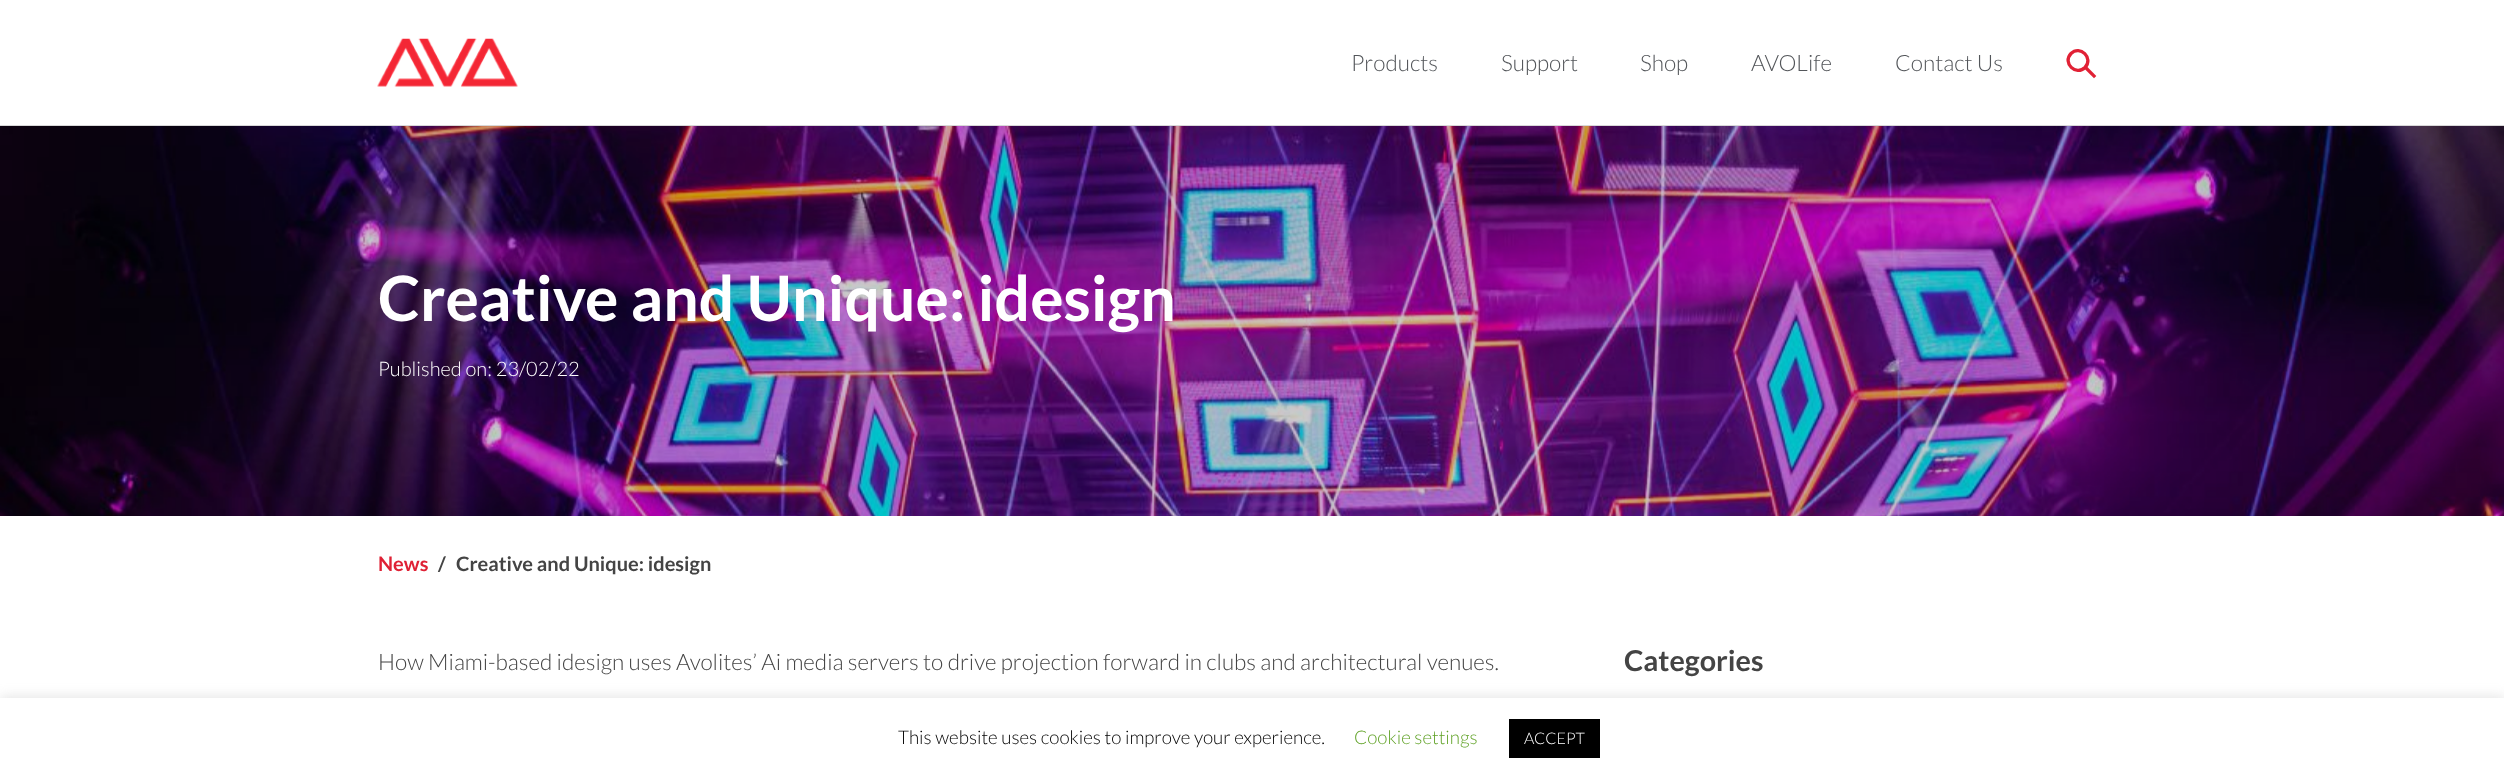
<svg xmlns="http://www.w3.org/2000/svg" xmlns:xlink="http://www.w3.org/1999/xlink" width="2504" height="778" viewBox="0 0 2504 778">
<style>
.cls-1{font:300 22.5px Lato;fill:#53565a}
.cls-2{font:bold 62.5px Lato;fill:#ffffff}
.cls-3{font:300 20px Lato;fill:#ffffff}
.cls-4{font:bold 20px Lato;fill:#df2135}
.cls-5{font:bold 20px Lato;fill:#444444}
.cls-6{font:300 22.5px Lato;fill:#444444}
.cls-7{font:bold 28.75px Lato;fill:#444444}
.cls-8{font:300 18.75px Lato;fill:#000000}
.cls-9{font:300 18.75px Lato;fill:#62a329}
.cls-10{font:300 16px Lato;fill:#ffffff}
</style>
<rect width="100%" height="100%" fill="#ffffff"/>
<rect fill="#d8d8d8" x="0" y="125" width="2504" height="1"/>
<image xlink:href="image0.png" x="377" y="38" width="141" height="49"/>
<path fill="none" stroke="#e12135" stroke-width="3.3" d="M2071 53.5C2080 44.5 2094 58 2085 67.5C2076 76.5 2062 63 2071 53.5Z"/>
<path fill="none" stroke="#e12135" stroke-width="3.3" stroke-linecap="square" d="M2086.5 68.5L2094 76"/>
<image xlink:href="image1.png" x="0" y="126" width="2504" height="390"/>
<rect fill="#acabab" fill-opacity="0.3" filter="blur(6px)" x="0" y="696" width="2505" height="82"/>
<rect fill="#ffffff" x="0" y="698" width="2504" height="80"/>
<rect fill="#000000" x="1509" y="719" width="91" height="39"/>
<text class="cls-1" x="1351" y="71">Products</text>
<text class="cls-1" x="1501" y="71">Support</text>
<text class="cls-1" x="1640" y="71">Shop</text>
<text class="cls-1" x="1751" y="71">AVOLife</text>
<text class="cls-1" x="1895" y="71">Contact Us</text>
<text class="cls-2" x="378" y="321">Creative and Unique: idesign</text>
<text class="cls-3" x="378" y="376">Published on: 23/02/22</text>
<text class="cls-4" x="378" y="571">News</text>
<text class="cls-5" x="438" y="571">/</text>
<text class="cls-5" x="456" y="571">Creative and Unique: idesign</text>
<text class="cls-6" x="378" y="670">How Miami-based idesign uses Avolites’ Ai media servers to drive projection forward in clubs and architectural venues.</text>
<text class="cls-7" x="1624" y="671">Categories</text>
<text class="cls-8" x="898" y="744">This website uses cookies to improve your experience.</text>
<text class="cls-9" x="1354" y="744">Cookie settings</text>
<text class="cls-10" x="1524" y="744">ACCEPT</text>
</svg>
